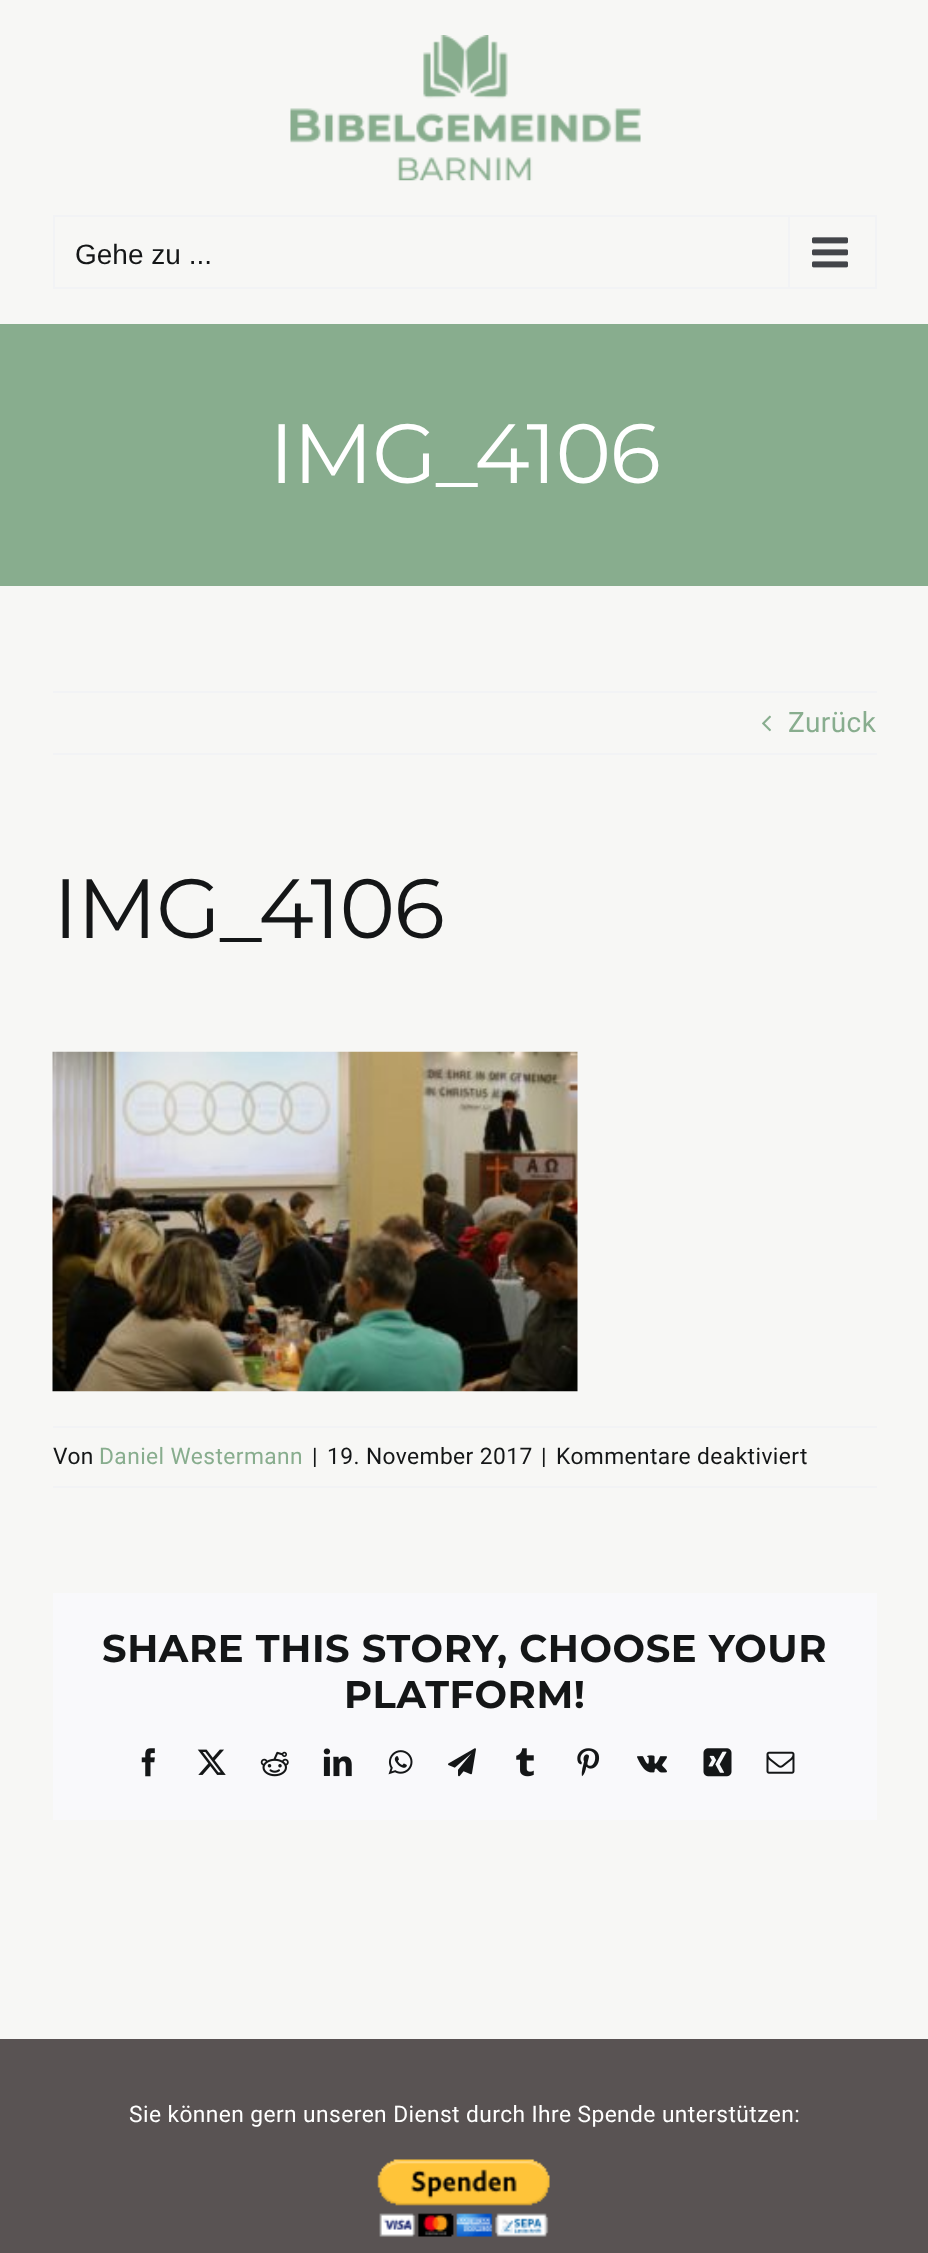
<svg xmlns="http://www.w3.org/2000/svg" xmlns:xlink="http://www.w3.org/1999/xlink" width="928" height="2253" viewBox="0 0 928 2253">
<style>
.cls-1{font:28px Liberation Sans;fill:#141617}
.cls-2{font:84px Montserrat;letter-spacing:-1.25px;fill:#ffffff}
.cls-3{font:28px Roboto;letter-spacing:0.42px;fill:#88ad8e}
.cls-4{font:84px Montserrat;letter-spacing:-1.25px;fill:#141617}
.cls-5{font:22.75px Roboto;letter-spacing:0.42px;fill:#141617}
.cls-6{font:22.75px Roboto;letter-spacing:0.42px;fill:#88ad8e}
.cls-7{font:bold 38.5px Montserrat;letter-spacing:0.6px;fill:#141617}
.cls-8{font:22.75px Roboto;letter-spacing:0.42px;fill:#ffffff}
</style>
<rect width="100%" height="100%" fill="#f7f7f5"/>
<image xlink:href="image0.png" x="290" y="35" width="351" height="146"/>
<rect fill="none" stroke="#f2f3f5" stroke-width="2" x="54" y="216" width="822" height="72"/>
<rect fill="#f2f3f5" x="788" y="217" width="2" height="70"/>
<image xlink:href="image1.png" x="812" y="237" width="36" height="31"/>
<rect fill="#88ad8e" x="0" y="324" width="928" height="262"/>
<rect fill="#f2f3f5" x="53" y="691" width="824" height="2"/>
<rect fill="#f2f3f5" x="53" y="753" width="824" height="2"/>
<image xlink:href="image2.png" x="762" y="715" width="9" height="17"/>
<image xlink:href="image3.png" x="52" y="1051" width="526" height="341"/>
<rect fill="#f2f3f5" x="53" y="1426" width="824" height="2"/>
<rect fill="#f2f3f5" x="53" y="1486" width="824" height="2"/>
<rect fill="#f9f9fb" x="53" y="1593" width="824" height="227"/>
<image xlink:href="image4.png" x="141" y="1748" width="14" height="29"/>
<image xlink:href="image5.png" x="197" y="1749" width="29" height="26"/>
<image xlink:href="image6.png" x="260" y="1751" width="29" height="26"/>
<image xlink:href="image7.png" x="323" y="1748" width="29" height="29"/>
<image xlink:href="image8.png" x="388" y="1750" width="25" height="25"/>
<image xlink:href="image9.png" x="448" y="1748" width="28" height="29"/>
<image xlink:href="image10.png" x="516" y="1748" width="18" height="29"/>
<image xlink:href="image11.png" x="577" y="1748" width="23" height="29"/>
<image xlink:href="image12.png" x="637" y="1755" width="30" height="18"/>
<image xlink:href="image13.png" x="703" y="1748" width="29" height="29"/>
<image xlink:href="image14.png" x="766" y="1751" width="29" height="23"/>
<rect fill="#595353" x="0" y="2039" width="928" height="214"/>
<image xlink:href="image15.png" x="377" y="2159" width="173" height="78"/>
<text class="cls-1" x="75" y="264">Gehe zu ...</text>
<text class="cls-2" x="269" y="483">IMG_4106</text>
<text class="cls-3" x="788" y="732">Zurück</text>
<text class="cls-4" x="53" y="938">IMG_4106</text>
<text class="cls-5" x="53" y="1464">Von</text>
<text class="cls-6" x="99" y="1464">Daniel Westermann</text>
<text class="cls-5" x="312" y="1464">|</text>
<text class="cls-5" x="327" y="1464">19. November 2017</text>
<text class="cls-5" x="541" y="1464">|</text>
<text class="cls-5" x="556" y="1464">Kommentare deaktiviert</text>
<text class="cls-7" x="102" y="1662">SHARE THIS STORY, CHOOSE YOUR</text>
<text class="cls-7" x="344" y="1708">PLATFORM!</text>
<text class="cls-8" x="129" y="2122">Sie können gern unseren Dienst durch Ihre Spende unterstützen:</text>
</svg>
